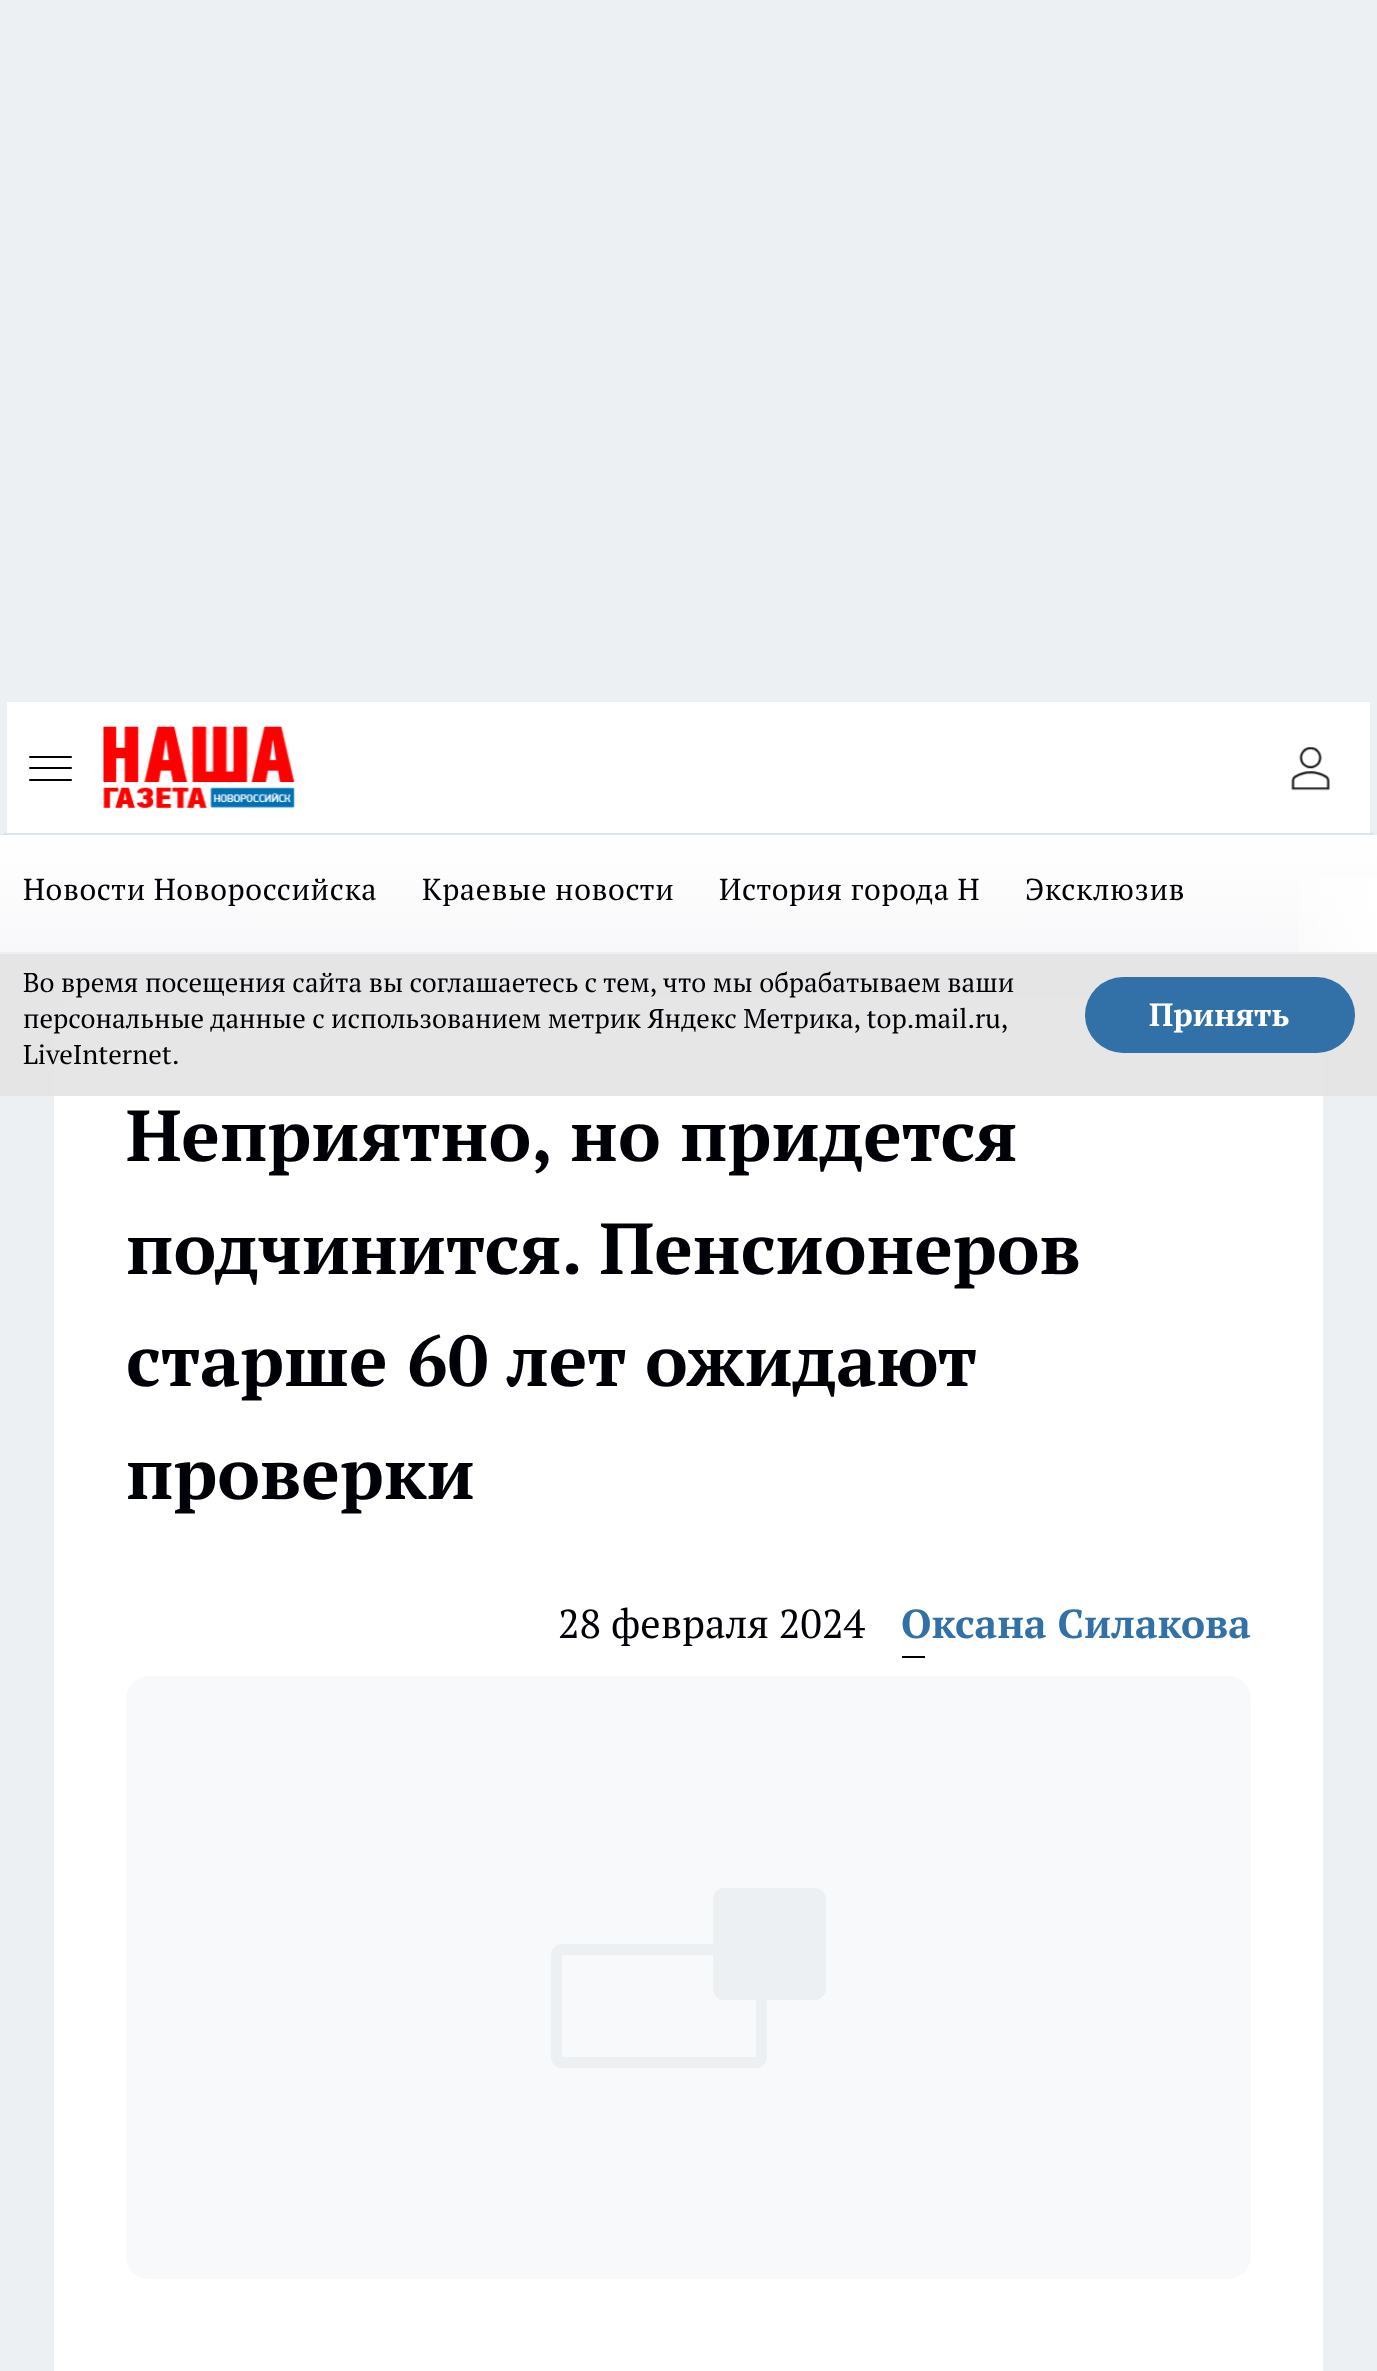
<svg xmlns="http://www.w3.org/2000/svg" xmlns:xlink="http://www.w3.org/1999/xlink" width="1377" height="2371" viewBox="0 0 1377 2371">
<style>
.cls-1{font:30.25px PT Serif;letter-spacing:0.6px;fill:#000106}
.cls-2{font:27px PT Serif;fill:#000106}
.cls-3{font:bold 32px PT Serif;fill:#ffffff}
.cls-4{font:bold 72px PT Serif;fill:#000106}
.cls-5{font:40.5px PT Serif;fill:#000106}
.cls-6{font:bold 40.5px PT Serif;fill:#3271a8}
</style>
<defs>
<linearGradient id="g1" gradientUnits="userSpaceOnUse" x1="689" y1="835" x2="689" y2="952"><stop offset="0" stop-color="#ffffff"/><stop offset="1" stop-color="#f8f8fa"/></linearGradient>
<linearGradient id="g2" gradientUnits="userSpaceOnUse" x1="1249" y1="893" x2="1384" y2="893"><stop offset="0" stop-color="#ffffff" stop-opacity="0"/><stop offset="1" stop-color="#ffffff"/></linearGradient>
</defs>
<rect width="100%" height="100%" fill="#ecf0f2"/>
<path fill="#dae4e9" d="M1377 835H0L7 832H1370Z"/>
<path fill="#ecf0f2" d="M0 835V702H7V832Z"/>
<rect fill="#ffffff" x="7" y="702" width="1363" height="131"/>
<rect fill="#000106" x="29" y="756" width="43" height="2" rx="1"/>
<rect fill="#000106" x="29" y="779" width="43" height="2" rx="1"/>
<rect fill="#000106" x="29" y="767" width="43" height="2" rx="1"/>
<image xlink:href="image0.png" x="103" y="726" width="192" height="82"/>
<image xlink:href="image1.png" x="1291" y="747" width="39" height="44"/>
<rect fill="url(#g1)" x="0" y="835" width="1377" height="117"/>
<rect fill="url(#g2)" x="1299" y="877" width="78" height="75"/>
<rect fill="#ffffff" x="54" y="997" width="1269" height="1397" rx="23"/>
<rect fill="#e3e3e3" fill-opacity="0.91" x="0" y="954" width="1377" height="142"/>
<rect fill="#3271a8" x="1085" y="977" width="270" height="76" rx="38"/>
<rect fill="#000106" x="902" y="1656" width="23" height="2"/>
<rect fill="#f7f9fa" x="126" y="1676" width="1125" height="603" rx="23"/>
<path fill="#ecf0f2" d="M713 1899C713 1893 718 1888 724 1888H814C821 1888 826 1893 826 1899V1989C826 1995 821 2000 814 2000H724C718 2000 713 1995 713 1989Z"/>
<rect fill="none" stroke="#ecf0f2" stroke-width="11" x="556.5" y="1949.5" width="205" height="113" rx="5.5"/>
<text class="cls-1" x="23" y="900">Новости Новороссийска</text>
<text class="cls-1" x="422" y="900">Краевые новости</text>
<text class="cls-1" x="719" y="900">История города Н</text>
<text class="cls-1" x="1025" y="900">Эксклюзив</text>
<text class="cls-2"><tspan x="23" y="992">Во время посещения сайта вы соглашаетесь с тем, что мы обрабатываем ваши</tspan><tspan x="23" y="1028" word-spacing="-0.25">персональные данные с использованием метрик Яндекс Метрика, top.mail.ru,</tspan><tspan x="23" y="1064">LiveInternet.</tspan></text>
<text class="cls-3" x="1149" y="1026">Принять</text>
<text class="cls-4"><tspan x="126" y="1161">Неприятно, но придется</tspan><tspan x="126" y="1274">подчинится. Пенсионеров</tspan><tspan x="126" y="1386">старше 60 лет ожидают</tspan><tspan x="126" y="1499">проверки</tspan></text>
<text class="cls-5" x="558" y="1638">28 февраля 2024</text>
<text class="cls-6" x="901" y="1638">Оксана Силакова</text>
</svg>
